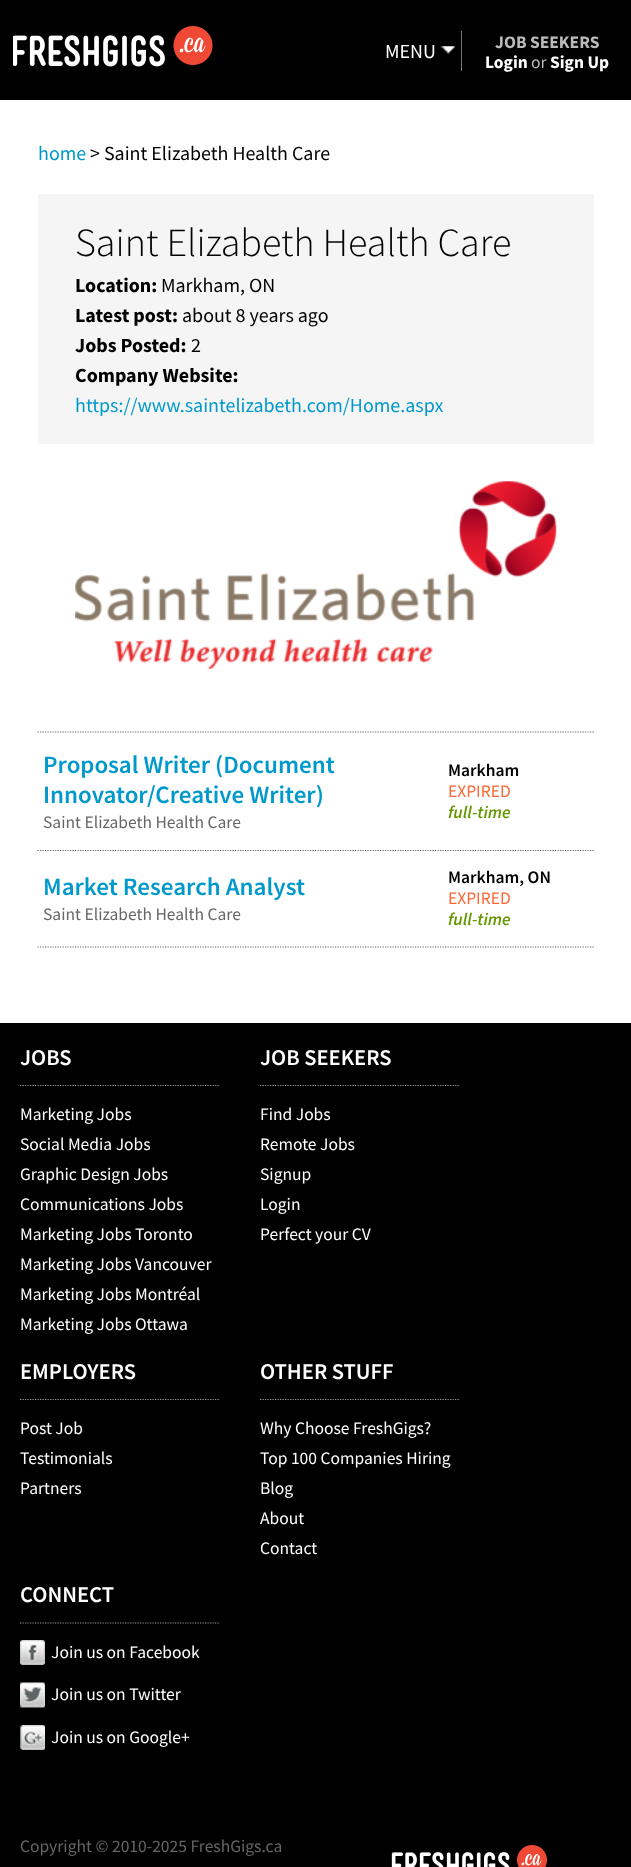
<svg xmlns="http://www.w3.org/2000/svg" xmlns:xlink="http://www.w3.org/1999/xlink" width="631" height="1867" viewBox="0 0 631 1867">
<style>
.cls-1{font:20px Source Sans Pro;fill:#ffffff}
.cls-2{font:bold 17.5px Source Sans Pro;fill:#bababa}
.cls-3{font:bold 17.5px Source Sans Pro;fill:#ffffff}
.cls-4{font:17.5px Source Sans Pro;fill:#bababa}
.cls-5{font:20px Source Sans Pro;fill:#0099cc}
.cls-6{font:20px Source Sans Pro;fill:#000000}
.cls-7{font:300 40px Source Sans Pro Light;fill:#000000}
.cls-8{font:bold 20px Source Sans Pro;fill:#000000}
.cls-9{font:600 25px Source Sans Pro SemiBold;fill:#0099cc}
.cls-10{font:17.5px Source Sans Pro;fill:#666666}
.cls-11{font:600 17.5px Source Sans Pro SemiBold;fill:#000000}
.cls-12{font:17.5px Source Sans Pro;fill:#ff6633}
.cls-13{font:italic 600 17.5px Source Sans Pro SemiBold;fill:#669900}
.cls-14{font:600 22.5px Source Sans Pro SemiBold;fill:#ffffff}
.cls-15{font:17.5px Source Sans Pro;fill:#ffffff}
</style>
<rect width="100%" height="100%" fill="#000000"/>
<image xlink:href="image0.png" x="13" y="26" width="200" height="41"/>
<image xlink:href="image1.png" x="440" y="46" width="15" height="8"/>
<rect fill="#757575" x="461" y="31" width="1" height="40"/>
<rect fill="#ffffff" x="0" y="100" width="631" height="923"/>
<rect fill="#f5f5f5" x="38" y="194" width="556" height="250"/>
<image xlink:href="image2.png" x="75" y="481" width="482" height="188"/>
<path fill="none" stroke="#666666" stroke-width="1.2" stroke-dasharray="1.25 1.25" d="M37.5 732H594"/>
<path fill="none" stroke="#666666" stroke-width="1.2" stroke-dasharray="1.25 1.25" d="M37.5 850.5H594"/>
<path fill="none" stroke="#666666" stroke-width="1.2" stroke-dasharray="1.25 1.25" d="M37.5 947H594"/>
<path fill="none" stroke="#999999" stroke-width="1.2" stroke-dasharray="1.25 1.25" d="M20 1085.5H220"/>
<path fill="none" stroke="#999999" stroke-width="1.2" stroke-dasharray="1.25 1.25" d="M260 1085.5H460"/>
<path fill="none" stroke="#999999" stroke-width="1.2" stroke-dasharray="1.25 1.25" d="M20 1399.5H220"/>
<path fill="none" stroke="#999999" stroke-width="1.2" stroke-dasharray="1.25 1.25" d="M260 1399.5H460"/>
<path fill="none" stroke="#999999" stroke-width="1.2" stroke-dasharray="1.25 1.25" d="M20 1623H220"/>
<image xlink:href="image3.png" x="20" y="1640" width="25" height="25"/>
<image xlink:href="image4.png" x="20" y="1682" width="25" height="26"/>
<image xlink:href="image5.png" x="20" y="1725" width="25" height="25"/>
<image xlink:href="image6.png" x="391" y="1845" width="156" height="22"/>
<text class="cls-1" x="385" y="58">MENU</text>
<text class="cls-2" x="495" y="48">JOB SEEKERS</text>
<text class="cls-3" x="485" y="68">Login</text>
<text class="cls-4" x="531" y="68">or</text>
<text class="cls-3" x="550" y="68">Sign Up</text>
<text class="cls-5" x="38" y="160">home</text>
<text class="cls-6" x="90" y="160">&gt; Saint Elizabeth Health Care</text>
<text class="cls-7" x="75" y="256">Saint Elizabeth Health Care</text>
<text class="cls-8" x="75" y="292">Location:</text>
<text class="cls-6" x="161" y="292">Markham, ON</text>
<text class="cls-8" x="75" y="322">Latest post:</text>
<text class="cls-6" x="182" y="322">about 8 years ago</text>
<text class="cls-8" x="75" y="352">Jobs Posted:</text>
<text class="cls-6" x="191" y="352">2</text>
<text class="cls-8" x="75" y="382">Company Website:</text>
<text class="cls-5" x="75" y="412">https://www.saintelizabeth.com/Home.aspx</text>
<text class="cls-9"><tspan x="43" y="773">Proposal Writer (Document</tspan><tspan x="43" y="803">Innovator/Creative Writer)</tspan></text>
<text class="cls-10" x="43" y="828">Saint Elizabeth Health Care</text>
<text class="cls-11" x="448" y="776">Markham</text>
<text class="cls-12" x="448" y="797">EXPIRED</text>
<text class="cls-13" x="448" y="818">full-time</text>
<text class="cls-9" x="43" y="895">Market Research Analyst</text>
<text class="cls-10" x="43" y="920">Saint Elizabeth Health Care</text>
<text class="cls-11" x="448" y="883">Markham, ON</text>
<text class="cls-12" x="448" y="904">EXPIRED</text>
<text class="cls-13" x="448" y="925">full-time</text>
<text class="cls-14" x="20" y="1065">JOBS</text>
<text class="cls-15"><tspan x="20" y="1120">Marketing Jobs</tspan><tspan x="20" y="1150">Social Media Jobs</tspan><tspan x="20" y="1180">Graphic Design Jobs</tspan><tspan x="20" y="1210">Communications Jobs</tspan><tspan x="20" y="1240">Marketing Jobs Toronto</tspan><tspan x="20" y="1270">Marketing Jobs Vancouver</tspan><tspan x="20" y="1300">Marketing Jobs Montréal</tspan><tspan x="20" y="1330">Marketing Jobs Ottawa</tspan></text>
<text class="cls-14" x="260" y="1065">JOB SEEKERS</text>
<text class="cls-15"><tspan x="260" y="1120">Find Jobs</tspan><tspan x="260" y="1150">Remote Jobs</tspan><tspan x="260" y="1180">Signup</tspan><tspan x="260" y="1210">Login</tspan><tspan x="260" y="1240">Perfect your CV</tspan></text>
<text class="cls-14" x="20" y="1379">EMPLOYERS</text>
<text class="cls-15"><tspan x="20" y="1434">Post Job</tspan><tspan x="20" y="1464">Testimonials</tspan><tspan x="20" y="1494">Partners</tspan></text>
<text class="cls-14" x="260" y="1379">OTHER STUFF</text>
<text class="cls-15"><tspan x="260" y="1434">Why Choose FreshGigs?</tspan><tspan x="260" y="1464">Top 100 Companies Hiring</tspan><tspan x="260" y="1494">Blog</tspan><tspan x="260" y="1524">About</tspan><tspan x="260" y="1554">Contact</tspan></text>
<text class="cls-14" x="20" y="1602">CONNECT</text>
<text class="cls-15" x="51" y="1658">Join us on Facebook</text>
<text class="cls-15" x="51" y="1700">Join us on Twitter</text>
<text class="cls-15" x="51" y="1743">Join us on Google+</text>
<text class="cls-10" x="20" y="1852">Copyright © 2010-2025 FreshGigs.ca</text>
</svg>
